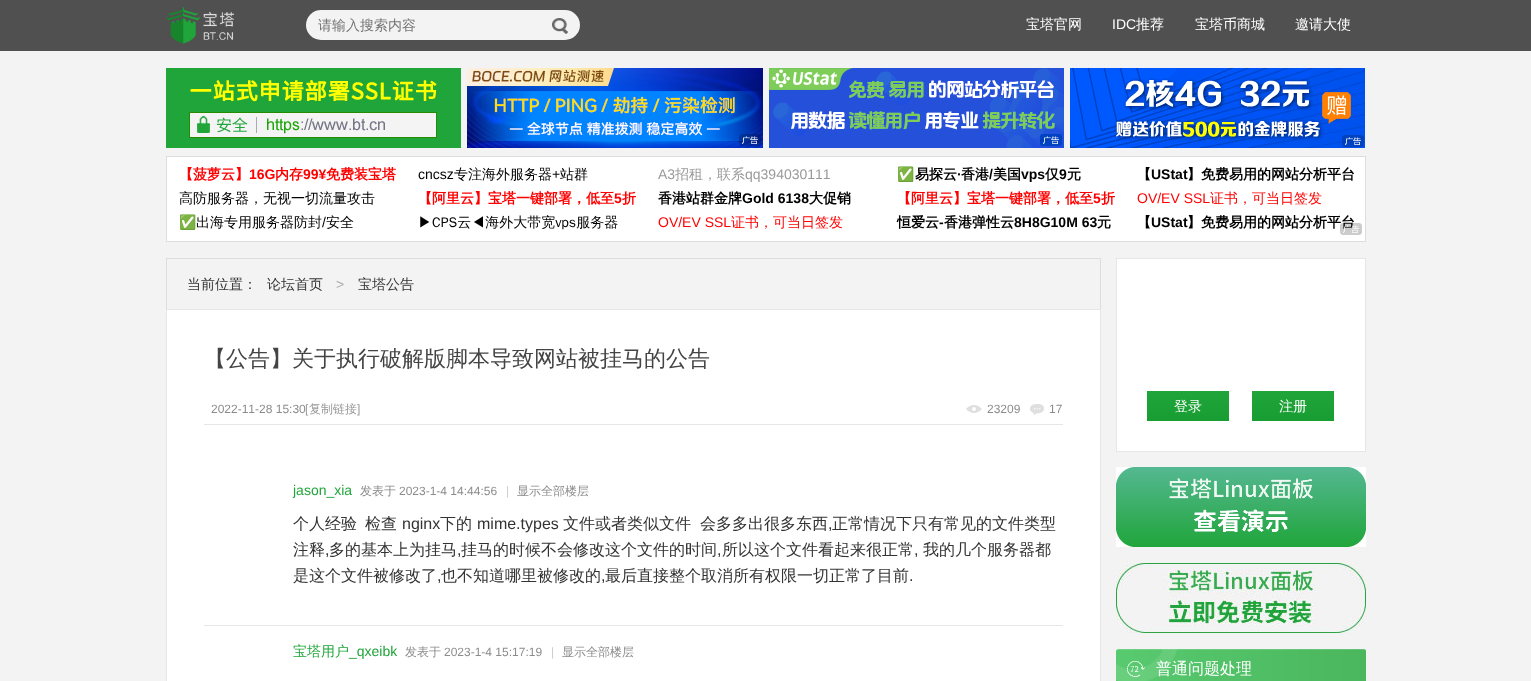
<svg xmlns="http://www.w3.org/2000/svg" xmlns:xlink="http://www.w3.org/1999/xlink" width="1531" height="681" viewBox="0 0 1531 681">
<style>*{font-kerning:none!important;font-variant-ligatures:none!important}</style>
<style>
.cls-1{font:500 14px WenQuanYi Zen Hei;fill:#757575}
.cls-2{font:500 14px WenQuanYi Zen Hei;fill:#ffffff}
.cls-3{font:14px Liberation Sans;fill:#ffffff}
.cls-4{font:bold 14px WenQuanYi Zen Hei;fill:#ff0000}
.cls-5{font:bold 14px Liberation Sans;fill:#ff0000}
.cls-6{font:14px Liberation Sans;fill:#000000}
.cls-7{font:500 14px WenQuanYi Zen Hei;fill:#000000}
.cls-8{font:14px Liberation Sans;fill:#999999}
.cls-9{font:500 14px WenQuanYi Zen Hei;fill:#999999}
.cls-10{font:bold 14px Noto Color Emoji;fill:#000000}
.cls-11{font:bold 14px WenQuanYi Zen Hei;fill:#000000}
.cls-12{font:bold 14px Liberation Sans;fill:#000000}
.cls-13{font:14px Liberation Sans;fill:#ff0000}
.cls-14{font:500 14px WenQuanYi Zen Hei;fill:#ff0000}
.cls-15{font:14px Noto Color Emoji;fill:#000000}
.cls-16{font:500 14px WenQuanYi Zen Hei;fill:#333333}
.cls-17{font:14px Liberation Sans;fill:#aaaaaa}
.cls-18{font:500 22px WenQuanYi Zen Hei;fill:#444444}
.cls-19{font:12px Liberation Sans;fill:#8c8c8c}
.cls-20{font:12px Liberation Sans;fill:#999999}
.cls-21{font:500 12px WenQuanYi Zen Hei;fill:#999999}
.cls-22{font:14px Liberation Sans;fill:#20a53a}
.cls-23{font:500 12px WenQuanYi Zen Hei;fill:#8c8c8c}
.cls-24{font:12px Liberation Sans;fill:#cccccc}
.cls-25{font:500 16px WenQuanYi Zen Hei;fill:#333333}
.cls-26{font:16px Liberation Sans;fill:#333333}
.cls-27{font:500 14px WenQuanYi Zen Hei;fill:#20a53a}
.cls-28{font:500 16px WenQuanYi Zen Hei;fill:#ffffff}
</style>
<defs>
<linearGradient id="g1" gradientUnits="userSpaceOnUse" x1="1188" y1="391" x2="1188" y2="421"><stop offset="0" stop-color="#20a53a"/><stop offset="1" stop-color="#189d32"/></linearGradient>
<linearGradient id="g2" gradientUnits="userSpaceOnUse" x1="1293" y1="391" x2="1293" y2="421"><stop offset="0" stop-color="#20a53a"/><stop offset="1" stop-color="#189d32"/></linearGradient>
</defs>
<rect width="100%" height="100%" fill="#f3f3f3"/>
<rect fill="#505050" x="0" y="0" width="1531" height="51"/>
<image xlink:href="image0.png" x="166" y="7" width="68" height="37"/>
<rect fill="#f3f3f3" x="306" y="10" width="274" height="30" rx="15"/>
<image xlink:href="image1.png" x="552" y="18" width="16" height="16"/>
<image xlink:href="image2.png" x="166" y="68" width="295" height="80"/>
<image xlink:href="image3.png" x="467" y="68" width="296" height="80"/>
<image xlink:href="image4.png" x="769" y="68" width="295" height="80"/>
<image xlink:href="image5.png" x="1070" y="68" width="295" height="80"/>
<rect fill="#ffffff" stroke="#dddddd" x="166.5" y="156.5" width="1199" height="85"/>
<rect fill="#dddddd" x="166" y="258" width="935" height="1"/>
<rect fill="#dddddd" x="1100" y="258" width="1" height="51"/>
<rect fill="#dddddd" x="166" y="258" width="1" height="51"/>
<rect fill="#e6e6e6" x="166" y="309" width="935" height="1"/>
<rect fill="#e6e6e6" x="1100" y="309" width="1" height="156"/>
<rect fill="#e6e6e6" x="166" y="309" width="1" height="156"/>
<rect fill="#ffffff" x="167" y="310" width="933" height="371"/>
<rect fill="#e6e6e6" x="204" y="424" width="859" height="1"/>
<image xlink:href="image7.png" x="966" y="405" width="16" height="8"/>
<image xlink:href="image8.png" x="1030" y="404" width="14" height="11"/>
<rect fill="#e6e6e6" x="1100" y="465" width="1" height="216"/>
<rect fill="#e6e6e6" x="166" y="465" width="1" height="216"/>
<rect fill="#e6e6e6" x="204" y="625" width="859" height="1"/>
<rect fill="#ffffff" stroke="#e6e6e6" x="1116.5" y="258.5" width="249" height="193"/>
<rect fill="url(#g1)" x="1147" y="391" width="82" height="30"/>
<rect fill="url(#g2)" x="1252" y="391" width="82" height="30"/>
<rect fill="#ffffff" x="1116" y="467" width="250" height="80"/>
<image xlink:href="image9.png" x="1116" y="467" width="250" height="80"/>
<image xlink:href="image10.png" x="1116" y="562" width="250" height="72"/>
<rect fill="#ffffff" x="1116" y="649" width="250" height="2"/>
<image xlink:href="image11.png" x="1116" y="649" width="250" height="32"/>
<image xlink:href="image12.png" x="1127" y="661" width="18" height="16"/>
<text class="cls-1" x="318" y="30">请输入搜索内容</text>
<text class="cls-2" x="1026" y="29">宝塔官网</text>
<text class="cls-3" x="1112" y="29">IDC</text>
<text class="cls-2" x="1136" y="29">推荐</text>
<text class="cls-2" x="1195" y="29">宝塔币商城</text>
<text class="cls-2" x="1295" y="29">邀请大使</text>
<text class="cls-4" x="179" y="179">【菠萝云】</text>
<text class="cls-5" x="249" y="179">16G</text>
<text class="cls-4" x="275" y="179">内存</text>
<text class="cls-5" x="303" y="179">99¥</text>
<text class="cls-4" x="326" y="179">免费装宝塔</text>
<text class="cls-6" x="418" y="179">cncsz</text>
<text class="cls-7" x="454" y="179">专注海外服务器</text>
<text class="cls-6" x="552" y="179">+</text>
<text class="cls-7" x="560" y="179">站群</text>
<text class="cls-8" x="658" y="179">A3</text>
<text class="cls-9" x="675" y="179">招租，联系</text>
<text class="cls-8" x="745" y="179">qq394030111</text>
<text class="cls-10" x="897" y="179">✅</text>
<text class="cls-11" x="915" y="179">易探云</text>
<text class="cls-12" x="957" y="179">·</text>
<text class="cls-11" x="961" y="179">香港</text>
<text class="cls-12" x="989" y="179">/</text>
<text class="cls-11" x="993" y="179">美国</text>
<text class="cls-12" x="1021" y="179">vps</text>
<text class="cls-11" x="1045" y="179">仅</text>
<text class="cls-12" x="1059" y="179">9</text>
<text class="cls-11" x="1067" y="179">元</text>
<text class="cls-11" x="1137" y="179">【</text>
<text class="cls-12" x="1151" y="179">UStat</text>
<text class="cls-11" x="1187" y="179">】免费易用的网站分析平台</text>
<text class="cls-7" x="179" y="203">高防服务器，无视一切流量攻击</text>
<text class="cls-4" x="418" y="203">【阿里云】宝塔一键部署，低至</text>
<text class="cls-5" x="614" y="203">5</text>
<text class="cls-4" x="622" y="203">折</text>
<text class="cls-11" x="658" y="203">香港站群金牌</text>
<text class="cls-12" x="742" y="203">Gold 6138</text>
<text class="cls-11" x="809" y="203">大促销</text>
<text class="cls-4" x="897" y="203">【阿里云】宝塔一键部署，低至</text>
<text class="cls-5" x="1093" y="203">5</text>
<text class="cls-4" x="1101" y="203">折</text>
<text class="cls-13" x="1137" y="203">OV/EV SSL</text>
<text class="cls-14" x="1210" y="203">证书，可当日签发</text>
<text class="cls-15" x="179" y="227">✅</text>
<text class="cls-7" x="196" y="227">出海专用服务器防封</text>
<text class="cls-6" x="322" y="227">/</text>
<text class="cls-7" x="326" y="227">安全</text>
<text class="cls-7" x="418" y="227">▶CPS云◀海外大带宽vps服务器</text>
<text class="cls-13" x="658" y="227">OV/EV SSL</text>
<text class="cls-14" x="731" y="227">证书，可当日签发</text>
<text class="cls-11" x="897" y="227">恒爱云</text>
<text class="cls-12" x="939" y="227">-</text>
<text class="cls-11" x="944" y="227">香港弹性云</text>
<text class="cls-12" x="1014" y="227">8H8G10M 63</text>
<text class="cls-11" x="1097" y="227">元</text>
<text class="cls-11" x="1137" y="227">【</text>
<text class="cls-12" x="1151" y="227">UStat</text>
<text class="cls-11" x="1187" y="227">】免费易用的网站分析平台</text>
<image xlink:href="image6.png" x="1340" y="223" width="22" height="12"/>
<text class="cls-16" x="187" y="289">当前位置：</text>
<text class="cls-16" x="267" y="289">论坛首页</text>
<text class="cls-17" x="336" y="289">&gt;</text>
<text class="cls-16" x="358" y="289">宝塔公告</text>
<text class="cls-18" x="204" y="366">【公告】关于执行破解版脚本导致网站被挂马的公告</text>
<text class="cls-19" x="211" y="413">2022-11-28 15:30</text>
<text class="cls-20" x="305" y="413">[</text>
<text class="cls-21" x="309" y="413">复制链接</text>
<text class="cls-20" x="357" y="413">]</text>
<text class="cls-19" x="987" y="413">23209</text>
<text class="cls-19" x="1049" y="413">17</text>
<text class="cls-22" x="293" y="495">jason_xia</text>
<text class="cls-23" x="360" y="495">发表于</text>
<text class="cls-19" x="399" y="495">2023-1-4 14:44:56</text>
<text class="cls-24" x="506" y="495">|</text>
<text class="cls-23" x="517" y="495">显示全部楼层</text>
<text class="cls-25" x="293" y="529">个人经验</text>
<text class="cls-25" x="365" y="529">检查</text>
<text class="cls-26" x="402" y="529">nginx</text>
<text class="cls-25" x="440" y="529">下的</text>
<text class="cls-26" x="477" y="529">mime.types</text>
<text class="cls-25" x="563" y="529">文件或者类似文件</text>
<text class="cls-25" x="700" y="529">会多多出很多东西</text>
<text class="cls-26" x="828" y="529">,</text>
<text class="cls-25" x="832" y="529">正常情况下只有常见的文件类型</text>
<text class="cls-25" x="293" y="555">注释</text>
<text class="cls-26" x="325" y="555">,</text>
<text class="cls-25" x="329" y="555">多的基本上为挂马</text>
<text class="cls-26" x="457" y="555">,</text>
<text class="cls-25" x="461" y="555">挂马的时候不会修改这个文件的时间</text>
<text class="cls-26" x="717" y="555">,</text>
<text class="cls-25" x="722" y="555">所以这个文件看起来很正常</text>
<text class="cls-26" x="914" y="555">,</text>
<text class="cls-25" x="923" y="555">我的几个服务器都</text>
<text class="cls-25" x="293" y="581">是这个文件被修改了</text>
<text class="cls-26" x="437" y="581">,</text>
<text class="cls-25" x="441" y="581">也不知道哪里被修改的</text>
<text class="cls-26" x="601" y="581">,</text>
<text class="cls-25" x="605" y="581">最后直接整个取消所有权限一切正常了目前</text>
<text class="cls-26" x="909" y="581">.</text>
<text class="cls-27" x="293" y="656">宝塔用户</text>
<text class="cls-22" x="349" y="656">_qxeibk</text>
<text class="cls-23" x="405" y="656">发表于</text>
<text class="cls-19" x="444" y="656">2023-1-4 15:17:19</text>
<text class="cls-24" x="551" y="656">|</text>
<text class="cls-23" x="562" y="656">显示全部楼层</text>
<text class="cls-2" x="1174" y="411">登录</text>
<text class="cls-2" x="1279" y="411">注册</text>
<text class="cls-28" x="1156" y="674">普通问题处理</text>
</svg>
